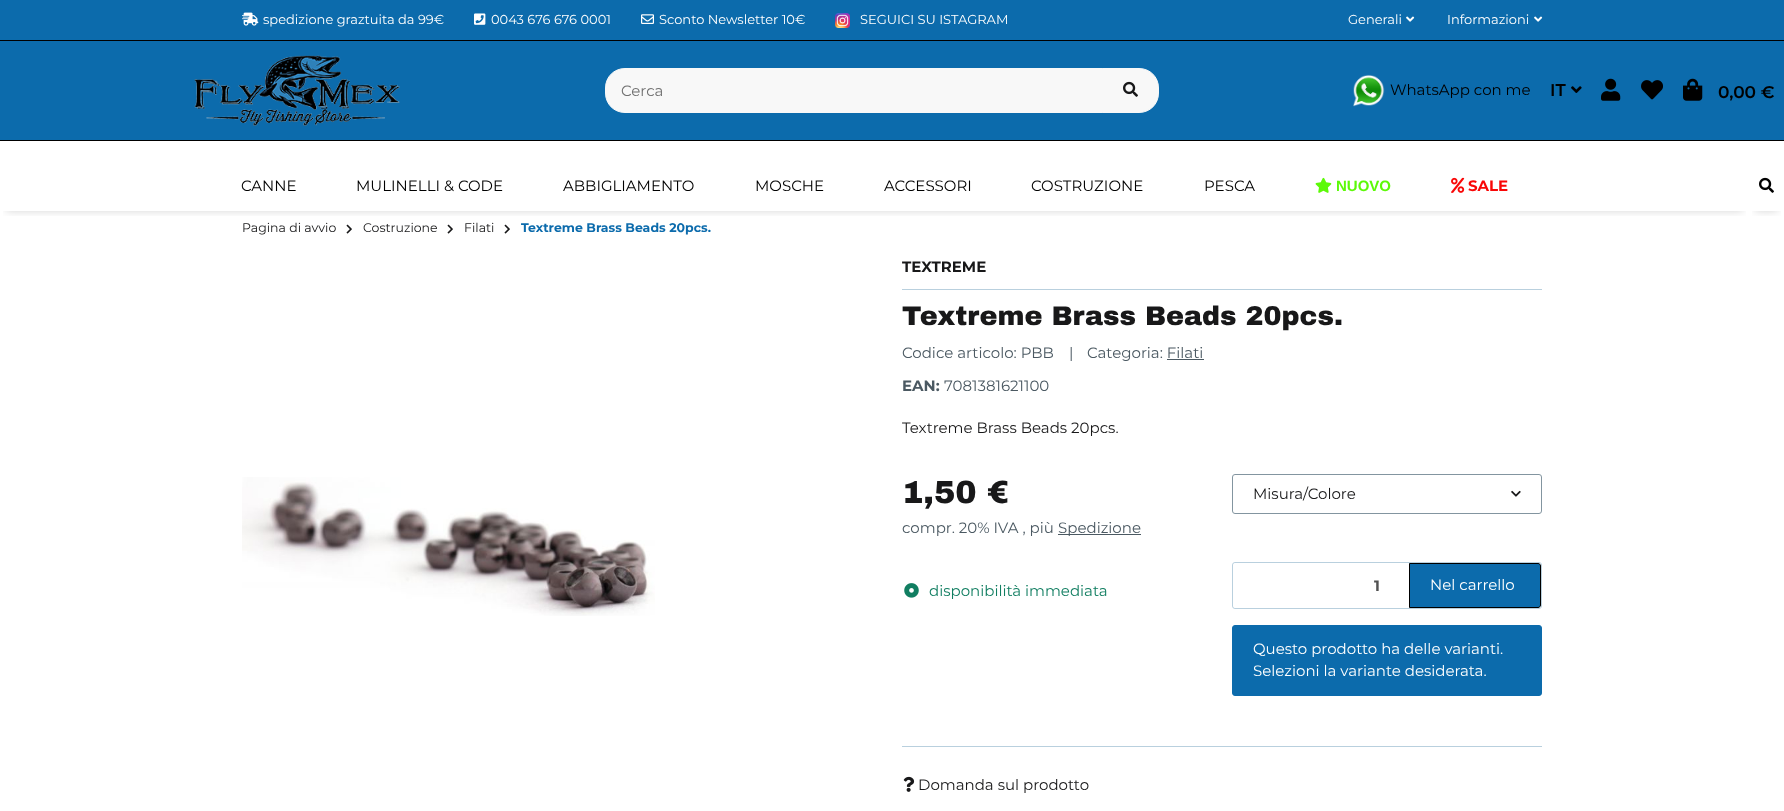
<svg xmlns="http://www.w3.org/2000/svg" xmlns:xlink="http://www.w3.org/1999/xlink" width="1784" height="811" viewBox="0 0 1784 811">
<style>
.cls-1{font:13px Montserrat;fill:#ffffff}
.cls-2{font:15px Montserrat;fill:#707070}
.cls-3{font:15px Montserrat;fill:#000000}
.cls-4{font:600 17px Montserrat;fill:#000000}
.cls-5{font:bold 15px Liberation Sans;fill:#5cf908}
.cls-6{font:bold 15px Montserrat;fill:#f90707}
.cls-7{font:12.5px Montserrat;fill:#181819}
.cls-8{font:bold 12.5px Montserrat;fill:#0c6bac}
.cls-9{font:bold 15px Montserrat;fill:#181819}
.cls-10{font:900 27px Archivo Black;fill:#181819}
.cls-11{font:15px Montserrat;fill:#4b5962}
.cls-12{font:bold 15px Montserrat;fill:#4b5962}
.cls-13{font:15px Montserrat;fill:#181819}
.cls-14{font:900 32px Archivo Black;fill:#181819}
.cls-15{font:15px Montserrat;fill:#117e61}
.cls-16{font:bold 15px Montserrat;fill:#525252}
.cls-17{font:15px Montserrat;fill:#ffffff}
</style>
<defs>
<clipPath id="clip1"><rect x="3" y="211" width="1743" height="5"/></clipPath>
<clipPath id="clip2"><rect x="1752" y="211" width="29" height="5"/></clipPath>
</defs>
<rect width="100%" height="100%" fill="#ffffff"/>
<rect fill="#0c6bac" x="0" y="0" width="1784" height="40"/>
<rect fill="#000000" x="0" y="40" width="1784" height="1"/>
<image xlink:href="image0.png" x="242" y="12" width="17" height="14"/>
<image xlink:href="image1.png" x="474" y="13" width="12" height="12"/>
<image xlink:href="image2.png" x="641" y="14" width="13" height="10"/>
<image xlink:href="image3.png" x="835" y="13" width="15" height="15"/>
<image xlink:href="image4.png" x="1406" y="16" width="9" height="6"/>
<image xlink:href="image4.png" x="1534" y="16" width="9" height="6"/>
<rect fill="#0c6bac" x="0" y="41" width="1784" height="99"/>
<rect fill="#000000" x="0" y="140" width="1784" height="1"/>
<image xlink:href="image5.png" x="194" y="55" width="206" height="71"/>
<path fill="#f8f8f8" stroke="#f8f8f8" d="M625 68.5H1102.5V112.5H625C614 112.5 605.5 104 605.5 93V88C605.5 77 614 68.5 625 68.5Z"/>
<path fill="#f8f8f8" stroke="#f8f8f8" d="M1102.5 68.5H1139C1150 68.5 1158.5 77 1158.5 88V93C1158.5 104 1150 112.5 1139 112.5H1102.5Z"/>
<image xlink:href="image6.png" x="1123" y="81" width="15" height="16"/>
<image xlink:href="image7.png" x="1353" y="74" width="32" height="33"/>
<image xlink:href="image8.png" x="1571" y="86" width="11" height="7"/>
<image xlink:href="image9.png" x="1601" y="78" width="20" height="23"/>
<image xlink:href="image10.png" x="1641" y="80" width="22" height="20"/>
<image xlink:href="image11.png" x="1683" y="78" width="20" height="23"/>
<image xlink:href="image15.png" x="346" y="224" width="6" height="10"/>
<image xlink:href="image15.png" x="447" y="224" width="6" height="10"/>
<image xlink:href="image15.png" x="504" y="224" width="6" height="10"/>
<g clip-path="url(#clip1)">
<rect fill="#000000" fill-opacity="0.16" filter="blur(4.5px)" x="6" y="173" width="1737" height="38"/>
</g>
<image xlink:href="image12.png" x="1315" y="177" width="17" height="16"/>
<image xlink:href="image13.png" x="1451" y="177" width="14" height="16"/>
<g clip-path="url(#clip2)">
<rect fill="#000000" fill-opacity="0.16" filter="blur(4.5px)" x="1755" y="173" width="23" height="38"/>
</g>
<image xlink:href="image14.png" x="1759" y="177" width="15" height="16"/>
<image xlink:href="image16.png" x="242" y="477" width="413" height="139"/>
<rect fill="#b9d0de" x="902" y="289" width="640" height="1"/>
<rect fill="#4b5962" x="1167" y="359" width="37" height="1"/>
<rect fill="#4b5962" x="1058" y="534" width="83" height="1"/>
<image xlink:href="image17.png" x="904" y="583" width="15" height="15"/>
<rect fill="none" stroke="#8395a0" x="1232.5" y="474.5" width="309" height="39" rx="2.5"/>
<image xlink:href="image18.png" x="1511" y="490" width="10" height="7"/>
<rect fill="none" stroke="#b9d0de" x="1232.5" y="562.5" width="309" height="46" rx="2.5"/>
<path fill="#ffffff" d="M1236 563H1410V608H1236C1234.5 608 1233 606.5 1233 605V566C1233 564.5 1234.5 563 1236 563Z"/>
<path fill="#0c6bac" stroke="#000000" d="M1409.5 563.5H1538C1539.5 563.5 1540.5 564.5 1540.5 566V605C1540.5 606.5 1539.5 607.5 1538 607.5H1409.5Z"/>
<rect fill="#0c6bac" stroke="#0c6bac" x="1232.5" y="625.5" width="309" height="70" rx="2.5"/>
<rect fill="#b9d0de" x="902" y="746" width="640" height="1"/>
<image xlink:href="image19.png" x="903" y="776" width="12" height="16"/>
<text class="cls-1" x="263" y="24">spedizione graztuita da 99€</text>
<text class="cls-1" x="491" y="24">0043 676 676 0001</text>
<text class="cls-1" x="659" y="24">Sconto Newsletter 10€</text>
<text class="cls-1" x="860" y="24">SEGUICI SU ISTAGRAM</text>
<text class="cls-1" x="1348" y="24">Generali</text>
<text class="cls-1" x="1447" y="24">Informazioni</text>
<text class="cls-2" x="621" y="96">Cerca</text>
<text class="cls-3" x="1390" y="95">WhatsApp con me</text>
<text class="cls-4" x="1550" y="96">IT</text>
<text class="cls-4" x="1718" y="98">0,00 €</text>
<text class="cls-3" x="241" y="191">CANNE</text>
<text class="cls-3" x="356" y="191">MULINELLI &amp; CODE</text>
<text class="cls-3" x="563" y="191">ABBIGLIAMENTO</text>
<text class="cls-3" x="755" y="191">MOSCHE</text>
<text class="cls-3" x="884" y="191">ACCESSORI</text>
<text class="cls-3" x="1031" y="191">COSTRUZIONE</text>
<text class="cls-3" x="1204" y="191">PESCA</text>
<text class="cls-5" x="1336" y="191">NUOVO</text>
<text class="cls-6" x="1468" y="191">SALE</text>
<text class="cls-7" x="242" y="232">Pagina di avvio</text>
<text class="cls-7" x="363" y="232">Costruzione</text>
<text class="cls-7" x="464" y="232">Filati</text>
<text class="cls-8" x="521" y="232">Textreme Brass Beads 20pcs.</text>
<text class="cls-9" x="902" y="272">TEXTREME</text>
<text class="cls-10" x="902" y="325">Textreme Brass Beads 20pcs.</text>
<text class="cls-11" x="902" y="358">Codice articolo: PBB</text>
<text class="cls-11" x="1069" y="358">|</text>
<text class="cls-11" x="1087" y="358">Categoria: Filati</text>
<text class="cls-12" x="902" y="391">EAN:</text>
<text class="cls-11" x="944" y="391">7081381621100</text>
<text class="cls-13" x="902" y="433">Textreme Brass Beads 20pcs.</text>
<text class="cls-14" x="902" y="503">1,50 €</text>
<text class="cls-11" x="902" y="533">compr. 20% IVA , più</text>
<text class="cls-11" x="1058" y="533">Spedizione</text>
<text class="cls-15" x="929" y="596">disponibilità immediata</text>
<text class="cls-13" x="1253" y="499">Misura/Colore</text>
<text class="cls-16" x="1374" y="591">1</text>
<text class="cls-17" x="1430" y="590">Nel carrello</text>
<text class="cls-17"><tspan x="1253" y="654">Questo prodotto ha delle varianti.</tspan><tspan x="1253" y="676">Selezioni la variante desiderata.</tspan></text>
<text class="cls-13" x="918" y="790">Domanda sul prodotto</text>
</svg>
